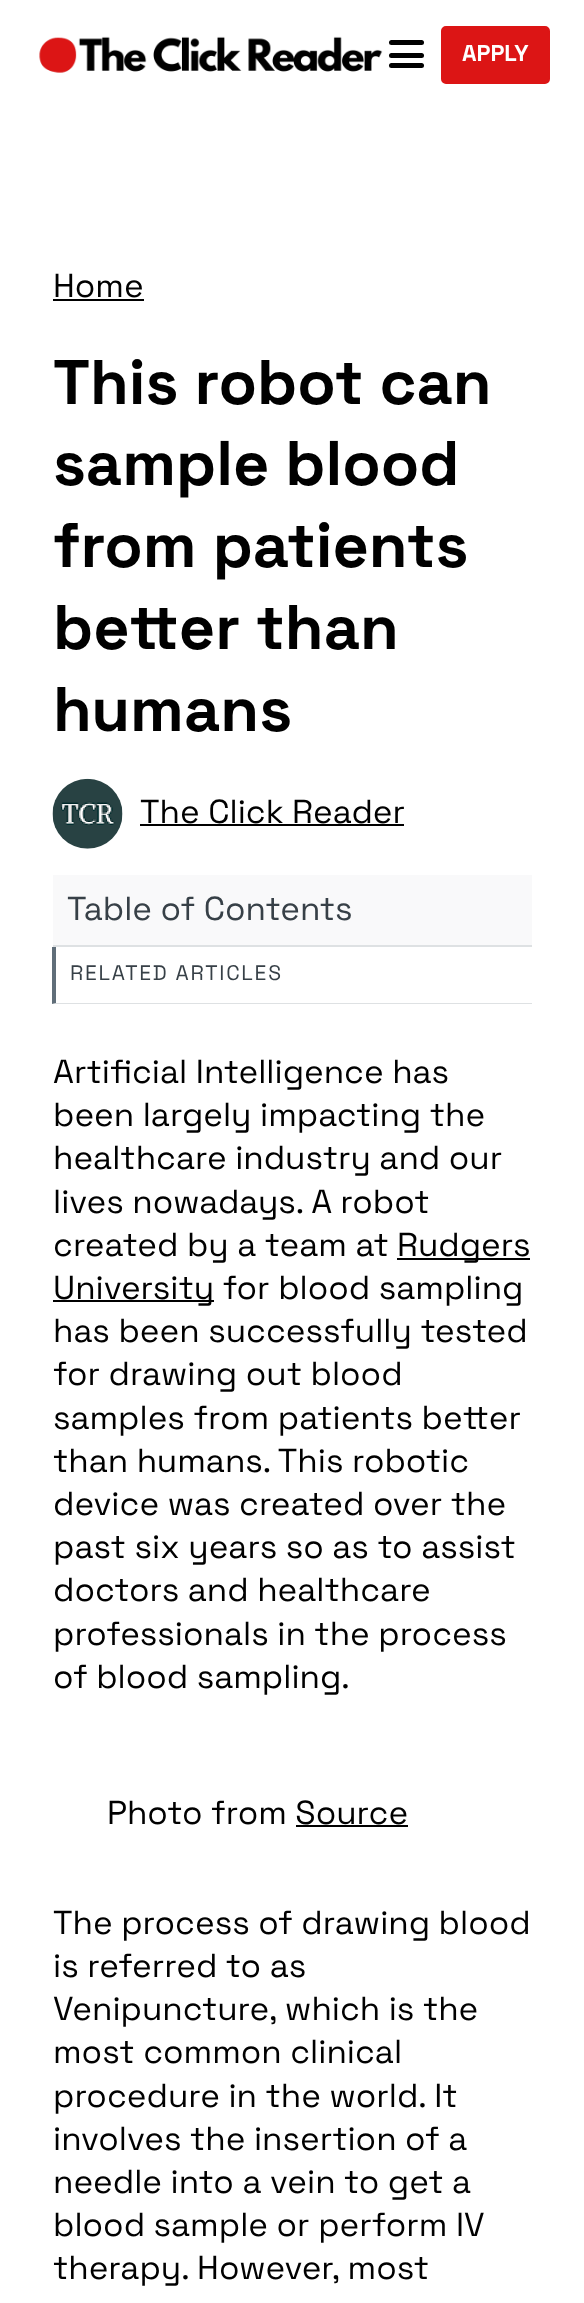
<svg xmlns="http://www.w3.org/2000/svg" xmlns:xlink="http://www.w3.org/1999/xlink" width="584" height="2303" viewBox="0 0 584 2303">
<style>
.cls-1{font:bold 23px Space Grotesk;fill:#ffffff}
.cls-2{font:33.25px Space Grotesk;fill:#000000}
.cls-3{font:bold 63px Space Grotesk;fill:#000000}
.cls-4{font:33.25px Space Grotesk;fill:#374047}
.cls-5{font:21px Space Grotesk;letter-spacing:1.75px;fill:#374047}
</style>
<rect width="100%" height="100%" fill="#ffffff"/>
<image xlink:href="image0.png" x="39" y="36" width="344" height="37"/>
<rect fill="#000000" x="389" y="40" width="35" height="5" rx="2.5"/>
<rect fill="#000000" x="389" y="53" width="35" height="5" rx="2.5"/>
<rect fill="#000000" x="389" y="63" width="35" height="5" rx="2.5"/>
<rect fill="#dc1515" stroke="#dc1515" stroke-width="2" x="442" y="27" width="107" height="56" rx="4"/>
<rect fill="#000000" x="53" y="299" width="91" height="2"/>
<image xlink:href="image1.png" x="52" y="778" width="71" height="71"/>
<rect fill="#000000" x="140" y="824" width="264" height="2"/>
<rect fill="#f9f9fa" x="53" y="875" width="479" height="70"/>
<rect fill="#dee1e3" x="53" y="945" width="479" height="2"/>
<path fill="#dee1e3" d="M532 1004H52L56 1003H532Z"/>
<path fill="#606e79" d="M52 1004V947H56V1003Z"/>
<rect fill="#000000" x="397" y="1258" width="133" height="2"/>
<rect fill="#000000" x="53" y="1300" width="161" height="2"/>
<rect fill="#000000" x="296" y="1825" width="112" height="2"/>
<text class="cls-1" x="462" y="61">APPLY</text>
<text class="cls-2" x="53" y="297">Home</text>
<text class="cls-3"><tspan x="53" y="404">This robot can</tspan><tspan x="53" y="485">sample blood</tspan><tspan x="53" y="567">from patients</tspan><tspan x="53" y="649">better than</tspan><tspan x="53" y="731">humans</tspan></text>
<text class="cls-2" x="140" y="823">The Click Reader</text>
<text class="cls-4" x="67" y="920">Table of Contents</text>
<text class="cls-5" x="70" y="980">RELATED ARTICLES</text>
<text class="cls-2"><tspan x="53" y="1083">Artificial Intelligence has</tspan><tspan x="53" y="1126">been largely impacting the</tspan><tspan x="53" y="1169">healthcare industry and our</tspan><tspan x="53" y="1213">lives nowadays. A robot</tspan><tspan x="53" y="1256">created by a team at</tspan></text>
<text class="cls-2" x="397" y="1256">Rudgers</text>
<text class="cls-2"><tspan x="53" y="1299">University for blood sampling</tspan><tspan x="53" y="1342">has been successfully tested</tspan><tspan x="53" y="1385">for drawing out blood</tspan><tspan x="53" y="1429">samples from patients better</tspan><tspan x="53" y="1472">than humans. This robotic</tspan><tspan x="53" y="1515">device was created over the</tspan><tspan x="53" y="1558">past six years so as to assist</tspan><tspan x="53" y="1601">doctors and healthcare</tspan><tspan x="53" y="1645">professionals in the process</tspan><tspan x="53" y="1688">of blood sampling.</tspan></text>
<text class="cls-2" x="107" y="1824">Photo from Source</text>
<text class="cls-2"><tspan x="53" y="1934">The process of drawing blood</tspan><tspan x="53" y="1977">is referred to as</tspan><tspan x="53" y="2020">Venipuncture, which is the</tspan><tspan x="53" y="2063">most common clinical</tspan><tspan x="53" y="2107">procedure in the world. It</tspan><tspan x="53" y="2150">involves the insertion of a</tspan><tspan x="53" y="2193">needle into a vein to get a</tspan><tspan x="53" y="2236">blood sample or perform IV</tspan><tspan x="53" y="2279">therapy. However, most</tspan></text>
</svg>
